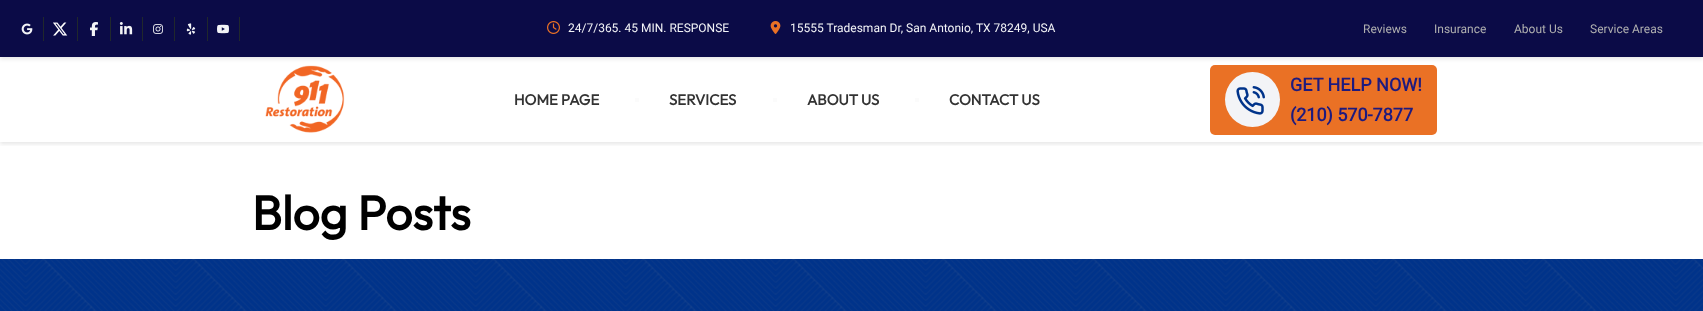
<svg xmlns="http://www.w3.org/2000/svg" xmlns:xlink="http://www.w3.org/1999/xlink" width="1703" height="311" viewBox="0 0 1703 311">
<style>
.cls-1{font:12px Roboto;fill:#f3f4f7}
.cls-2{font:12px Roboto;fill:#b0b0b0}
.cls-3{font:bold 15px Outfit;fill:#333333}
.cls-4{font:bold 18px Roboto;fill:#1d1a7f}
.cls-5{font:bold 48px Outfit;fill:#000000}
</style>
<defs>
<clipPath id="clip1"><rect x="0" y="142" width="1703" height="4"/></clipPath>
</defs>
<rect width="100%" height="100%" fill="#ffffff"/>
<g clip-path="url(#clip1)">
<rect fill="#000000" fill-opacity="0.1" filter="blur(2px)" x="0" y="59" width="1703" height="85"/>
</g>
<image xlink:href="image9.png" x="265" y="65" width="80" height="68"/>
<rect fill="#ea7125" x="1210" y="65" width="227" height="70" rx="5"/>
<rect fill="#000000" fill-opacity="0.1" filter="blur(2px)" x="0" y="2" width="1703" height="57"/>
<rect fill="#0b0b47" x="0" y="0" width="1703" height="57"/>
<image xlink:href="image0.png" x="21" y="23" width="12" height="12"/>
<rect fill="#20282c" x="43" y="17" width="1" height="24"/>
<image xlink:href="image1.png" x="53" y="22" width="15" height="14"/>
<rect fill="#20282c" x="77" y="17" width="1" height="24"/>
<image xlink:href="image2.png" x="90" y="22" width="8" height="14"/>
<rect fill="#20282c" x="110" y="17" width="1" height="24"/>
<image xlink:href="image3.png" x="119" y="22" width="14" height="13"/>
<rect fill="#20282c" x="142" y="17" width="1" height="24"/>
<image xlink:href="image4.png" x="153" y="24" width="10" height="10"/>
<rect fill="#20282c" x="174" y="17" width="1" height="24"/>
<image xlink:href="image5.png" x="186" y="23" width="10" height="12"/>
<rect fill="#20282c" x="207" y="17" width="1" height="24"/>
<image xlink:href="image6.png" x="217" y="24" width="12" height="10"/>
<rect fill="#20282c" x="239" y="17" width="1" height="24"/>
<image xlink:href="image7.png" x="547" y="21" width="13" height="13"/>
<image xlink:href="image8.png" x="770" y="21" width="11" height="13"/>
<rect fill="#fbfbfb" x="635" y="98" width="4" height="4"/>
<rect fill="#fbfbfb" x="773" y="98" width="4" height="4"/>
<rect fill="#fbfbfb" x="915" y="98" width="4" height="4"/>
<circle fill="#f3f4f7" cx="1252.5" cy="99.5" r="27.5"/>
<image xlink:href="image10.png" x="1236" y="86" width="29" height="29"/>
<rect fill="#00338a" x="0" y="259" width="1703" height="52"/>
<image xlink:href="image11.png" x="0" y="259" width="1703" height="52"/>
<text class="cls-1" x="568" y="32">24/7/365. 45 MIN. RESPONSE</text>
<text class="cls-1" x="790" y="32">15555 Tradesman Dr, San Antonio, TX 78249, USA</text>
<text class="cls-2" x="1363" y="33">Reviews</text>
<text class="cls-2" x="1434" y="33">Insurance</text>
<text class="cls-2" x="1514" y="33">About Us</text>
<text class="cls-2" x="1590" y="33">Service Areas</text>
<text class="cls-3" x="514" y="105">HOME PAGE</text>
<text class="cls-3" x="669" y="105">SERVICES</text>
<text class="cls-3" x="807" y="105">ABOUT US</text>
<text class="cls-3" x="949" y="105">CONTACT US</text>
<text class="cls-4"><tspan x="1290" y="91">GET HELP NOW!</tspan><tspan x="1290" y="121">(210) 570-7877</tspan></text>
<text class="cls-5" x="252" y="230">Blog Posts</text>
</svg>
